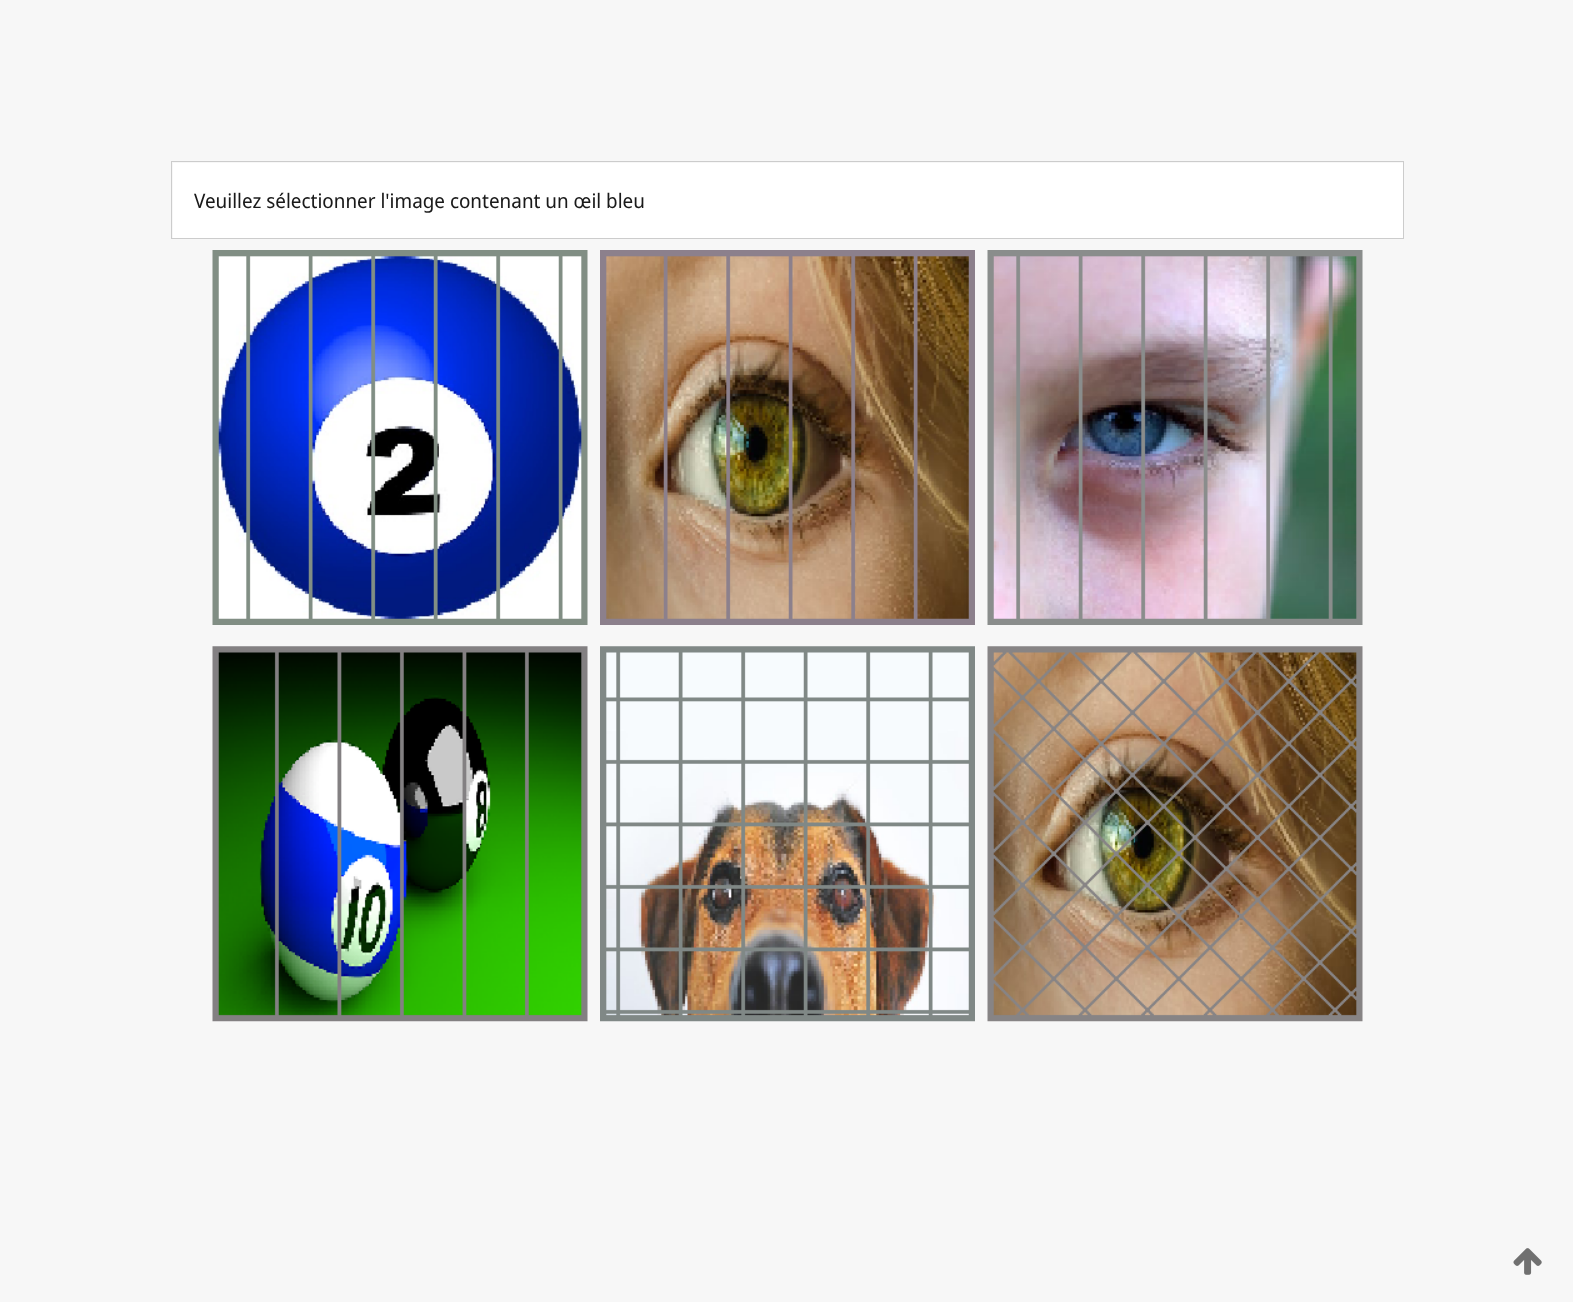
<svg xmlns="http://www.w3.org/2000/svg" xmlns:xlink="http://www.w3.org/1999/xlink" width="1573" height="1302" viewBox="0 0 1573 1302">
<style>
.cls-1{font:20px Noto Sans Display;fill:#1a1a1a}
</style>
<rect width="100%" height="100%" fill="#f7f7f7"/>
<rect fill="#ffffff" x="173" y="163" width="1230" height="75"/>
<rect fill="none" stroke="#cccccc" x="171.5" y="161.5" width="1232" height="77"/>
<image xlink:href="image0.png" x="212" y="250" width="376" height="375"/>
<image xlink:href="image1.png" x="600" y="250" width="375" height="375"/>
<image xlink:href="image2.png" x="987" y="250" width="376" height="375"/>
<image xlink:href="image3.png" x="212" y="646" width="376" height="376"/>
<image xlink:href="image4.png" x="600" y="646" width="375" height="376"/>
<image xlink:href="image5.png" x="987" y="646" width="376" height="376"/>
<image xlink:href="image6.png" x="1513" y="1248" width="29" height="27"/>
<text class="cls-1" x="194" y="208">Veuillez sélectionner l'image contenant un œil bleu</text>
</svg>
